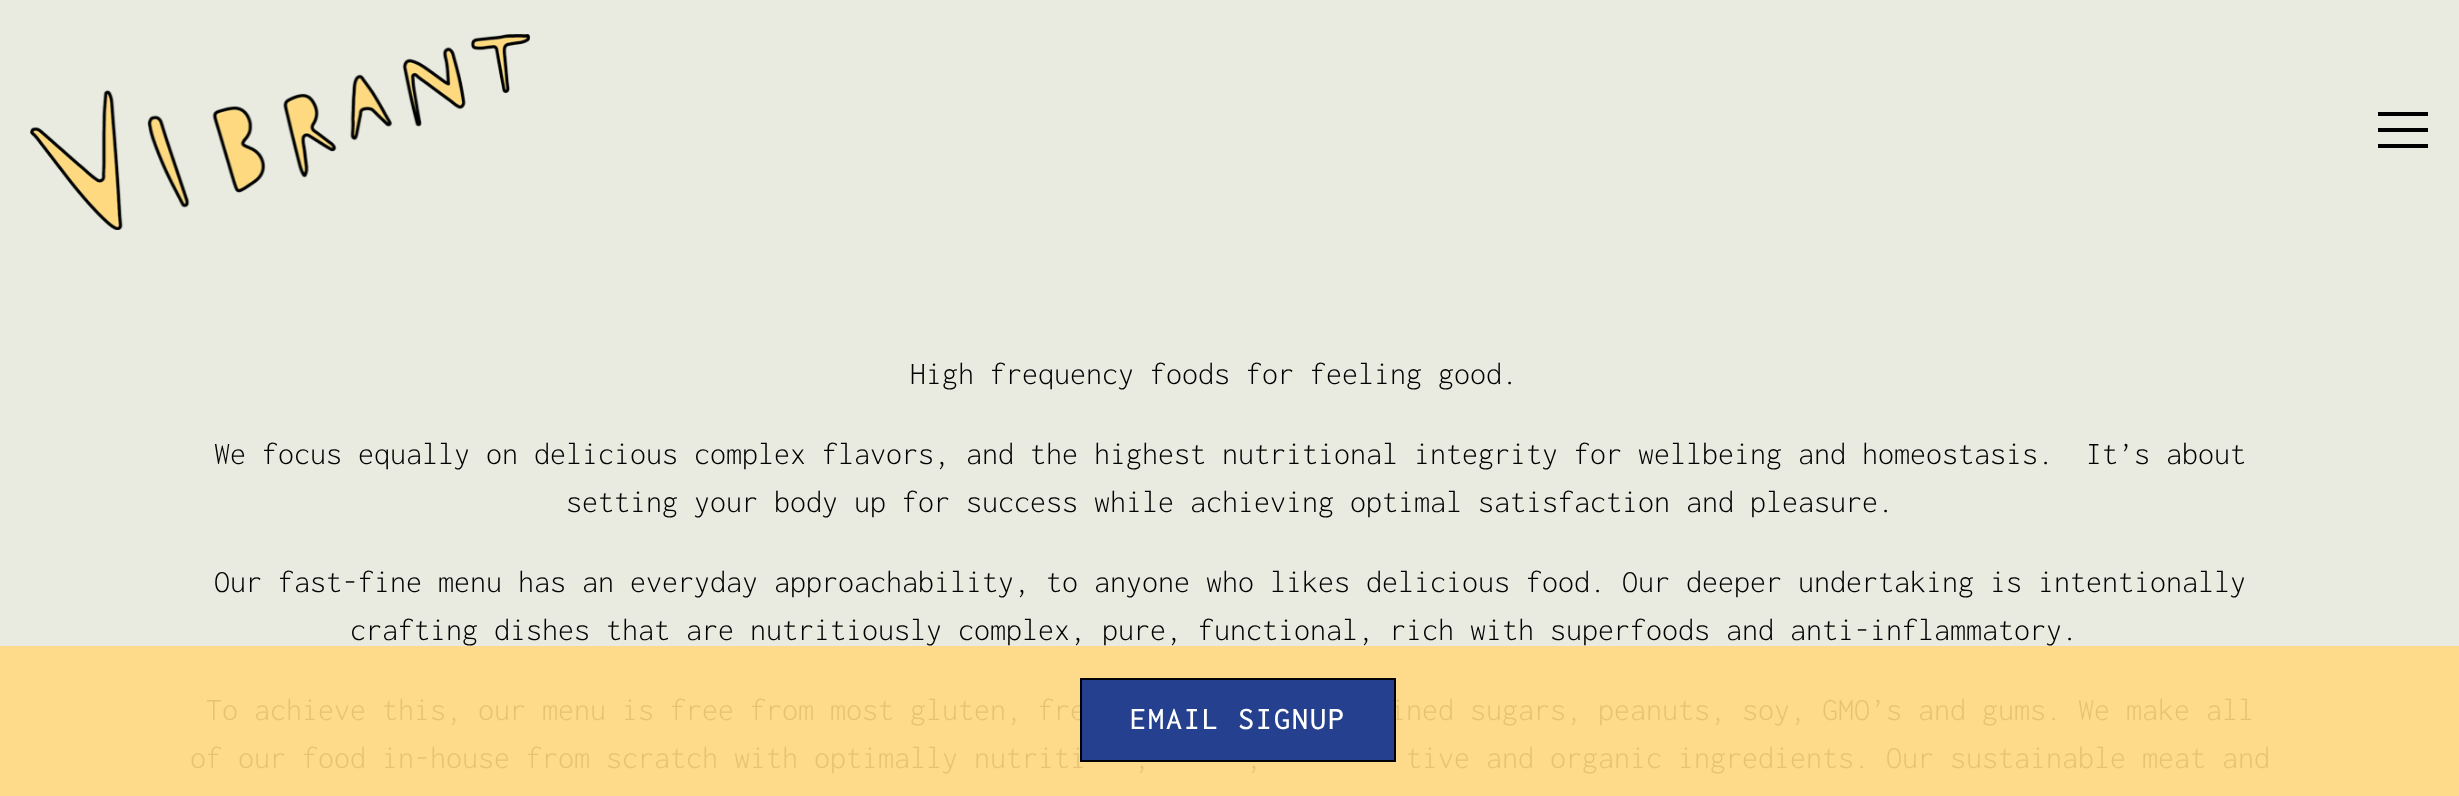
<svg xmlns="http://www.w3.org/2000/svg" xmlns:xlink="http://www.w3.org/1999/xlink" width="2459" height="796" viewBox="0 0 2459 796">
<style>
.cls-1{font:300 32px Inconsolata;fill:#000000}
.cls-2{font:300 32px Inconsolata;fill:#e6c373}
.cls-3{font:500 32px Inconsolata;letter-spacing:2px;fill:#ffffff}
</style>
<rect width="100%" height="100%" fill="#e9eae0"/>
<rect fill="#fddb8a" x="0" y="646" width="2459" height="150"/>
<image xlink:href="image0.png" x="30" y="34" width="500" height="196"/>
<rect fill="#000000" x="2378" y="112" width="50" height="4"/>
<rect fill="#000000" x="2378" y="128" width="50" height="4"/>
<rect fill="#000000" x="2378" y="144" width="50" height="4"/>
<text class="cls-1" x="910" y="384">High frequency foods for feeling good.</text>
<text class="cls-1" xml:space="preserve" x="214" y="464">We focus equally on delicious complex flavors, and the highest nutritional integrity for wellbeing and homeostasis.  It’s about</text>
<text class="cls-1" x="566" y="512">setting your body up for success while achieving optimal satisfaction and pleasure.</text>
<text class="cls-1" x="214" y="592">Our fast-fine menu has an everyday approachability, to anyone who likes delicious food. Our deeper undertaking is intentionally</text>
<text class="cls-1" x="350" y="640">crafting dishes that are nutritiously complex, pure, functional, rich with superfoods and anti-inflammatory.</text>
<text class="cls-2" x="206" y="720">To achieve this, our menu is free from most gluten, fre</text>
<text class="cls-2" x="1390" y="720">ined sugars, peanuts, soy, GMO’s and gums. We make all</text>
<text class="cls-2" x="190" y="768">of our food in-house from scratch with optimally nutriti</text>
<text class="cls-2" x="1134" y="768">,</text>
<text class="cls-2" x="1246" y="768">,</text>
<text class="cls-2" x="1406" y="768">tive and organic ingredients. Our sustainable meat and</text>
<rect fill="#25408f" stroke="#000000" stroke-width="2" x="1081" y="679" width="314" height="82"/>
<text class="cls-3" x="1130" y="729">EMAIL SIGNUP</text>
</svg>
